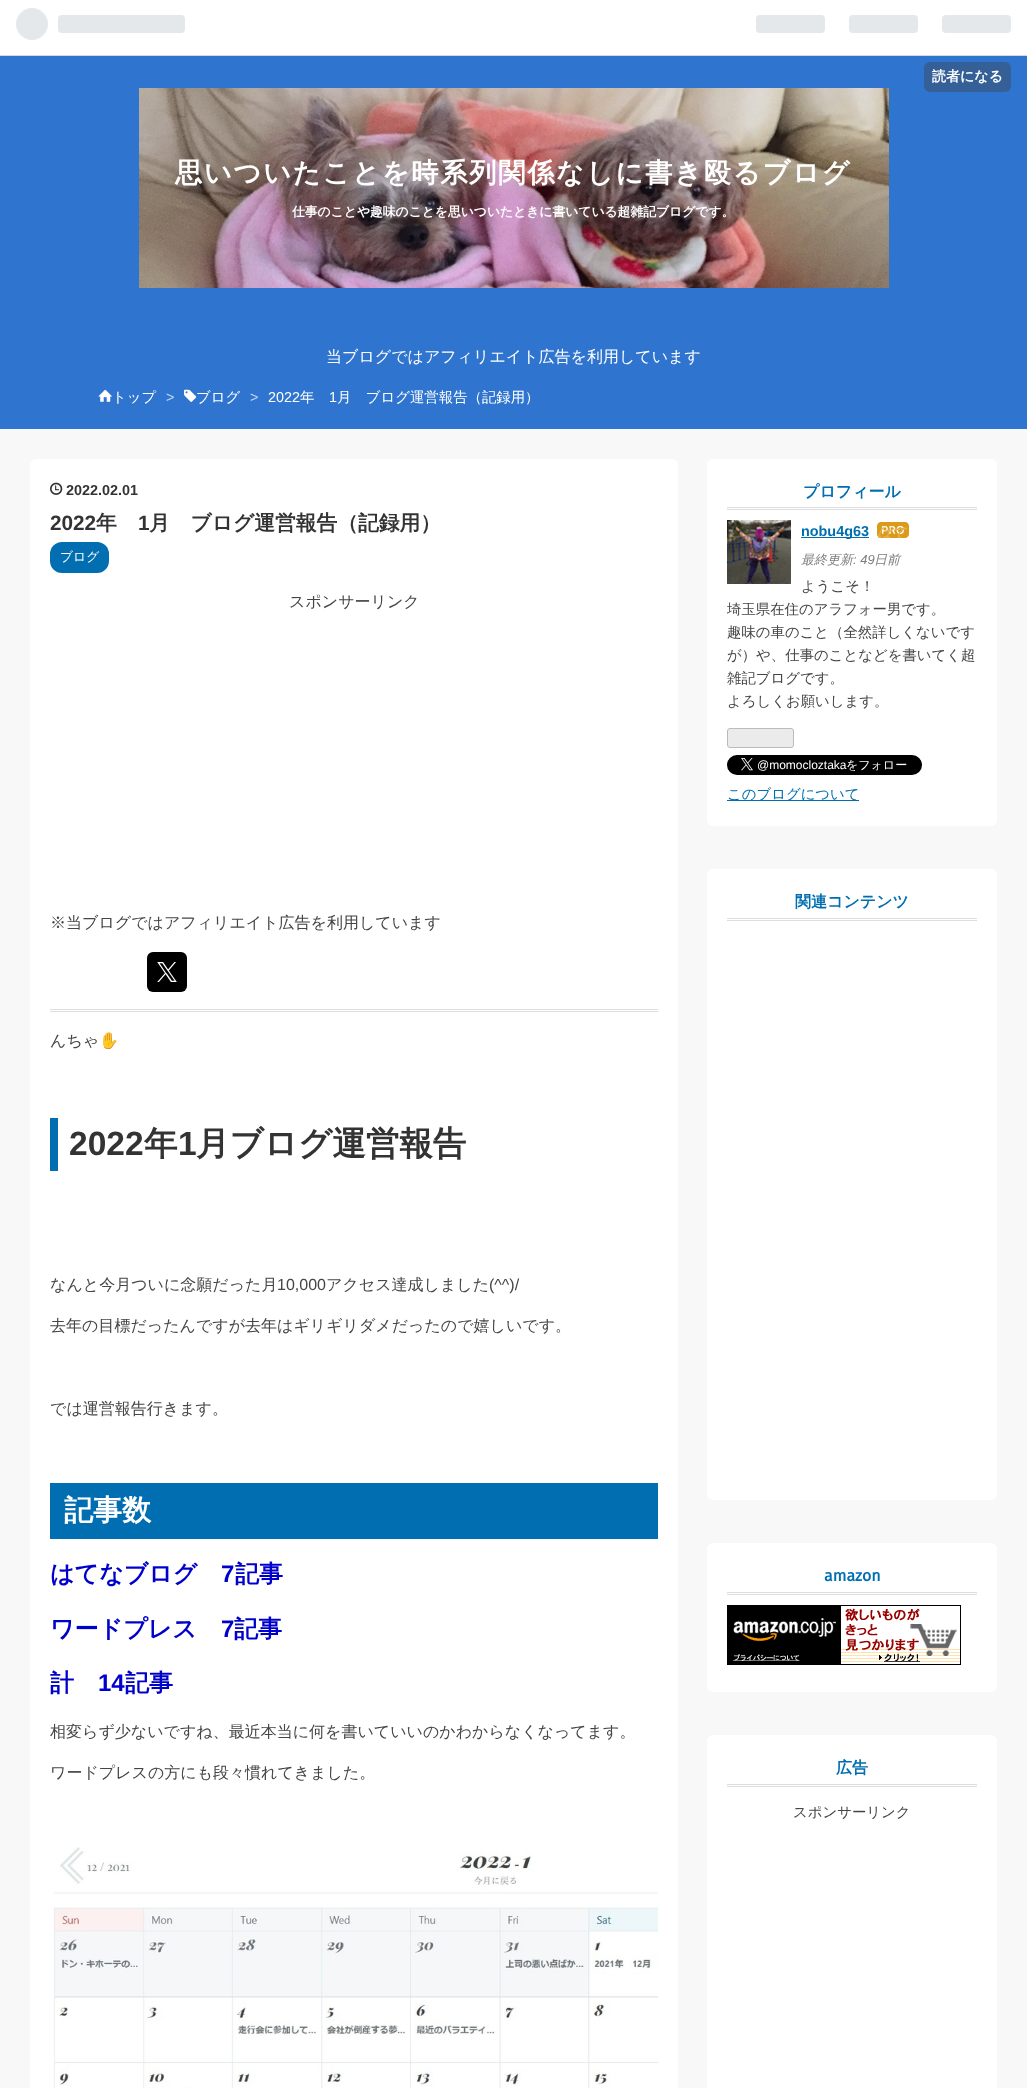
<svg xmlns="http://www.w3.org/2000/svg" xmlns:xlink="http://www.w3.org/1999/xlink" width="1027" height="2088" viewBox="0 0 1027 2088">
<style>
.cls-1{font:bold 14px WenQuanYi Zen Hei;fill:#ffffff}
.cls-2{font:bold 27.2px WenQuanYi Zen Hei;letter-spacing:1.8px;fill:#ffffff}
.cls-3{font:bold 12.8px WenQuanYi Zen Hei;fill:#ffffff}
.cls-4{font:500 16px WenQuanYi Zen Hei;fill:#ffffff}
.cls-5{font:500 14.4px WenQuanYi Zen Hei;fill:#ffffff}
.cls-6{font:14.4px Liberation Sans;fill:#c1d5f0}
.cls-7{font:14.4px Liberation Sans;fill:#ffffff}
.cls-8{font:bold 14.4px Liberation Sans;fill:#333333}
.cls-9{font:bold 20.75px Liberation Sans;fill:#333333}
.cls-10{font:bold 20.75px WenQuanYi Zen Hei;fill:#333333}
.cls-11{font:500 12.8px WenQuanYi Zen Hei;fill:#ffffff}
.cls-12{font:500 16px WenQuanYi Zen Hei;fill:#454545}
.cls-13{font:16px Noto Color Emoji;fill:#454545}
.cls-14{font:bold 33.5px Liberation Sans;fill:#333333}
.cls-15{font:bold 33.5px WenQuanYi Zen Hei;fill:#333333}
.cls-16{font:16px Liberation Sans;fill:#454545}
.cls-17{font:bold 29px WenQuanYi Zen Hei;fill:#ffffff}
.cls-18{font:bold 24px WenQuanYi Zen Hei;fill:#0000cc}
.cls-19{font:bold 24px Liberation Sans;fill:#0000cc}
.cls-20{font:bold 16px WenQuanYi Zen Hei;fill:#006eb0}
.cls-21{font:bold 14.4px Liberation Sans;fill:#006eb0}
.cls-22{font:italic bold 14.4px WenQuanYi Zen Hei;fill:#e3b14b}
.cls-23{font:italic 500 13px WenQuanYi Zen Hei;fill:#7d7d7d}
.cls-24{font:italic 13px Liberation Sans;fill:#7d7d7d}
.cls-25{font:500 14.4px WenQuanYi Zen Hei;fill:#454545}
.cls-26{font:12px Liberation Sans;fill:#ffffff}
.cls-27{font:500 12px WenQuanYi Zen Hei;fill:#ffffff}
.cls-28{font:500 14.4px WenQuanYi Zen Hei;fill:#006eb0}
.cls-29{font:bold 16px Fira Sans;fill:#006eb0}
</style>
<defs>
<clipPath id="clip1"><rect x="877" y="522" width="32" height="16"/></clipPath>
</defs>
<rect width="100%" height="100%" fill="#2f74ce"/>
<rect fill="#ffffff" x="0" y="0" width="1027" height="55"/>
<rect fill="#d2d8dd" x="0" y="55" width="1027" height="1"/>
<image xlink:href="image0.png" x="16" y="8" width="169" height="32"/>
<image xlink:href="image1.png" x="756" y="15" width="255" height="18"/>
<rect fill="#356097" x="924" y="62" width="87" height="30" rx="6"/>
<image xlink:href="image2.png" x="139" y="88" width="750" height="200"/>
<image xlink:href="image3.png" x="98" y="389" width="14" height="13"/>
<image xlink:href="image4.png" x="184" y="389" width="13" height="13"/>
<rect fill="#f8f8f8" x="0" y="429" width="1027" height="1659"/>
<rect fill="#ffffff" x="30" y="459" width="648" height="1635" rx="6"/>
<rect fill="#dddddd" x="50" y="1009" width="608" height="1"/>
<rect fill="#dddddd" x="50" y="1011" width="608" height="1"/>
<image xlink:href="image5.png" x="50" y="482" width="13" height="13"/>
<rect fill="#006eb0" x="50" y="542" width="59" height="31" rx="12"/>
<rect fill="#000000" x="147" y="952" width="40" height="40" rx="6"/>
<image xlink:href="image6.png" x="157" y="962" width="20" height="20"/>
<rect fill="#006eb0" x="50" y="1118" width="8" height="53"/>
<rect fill="#006eb0" x="50" y="1483" width="608" height="56"/>
<image xlink:href="image7.png" x="53" y="1847" width="605" height="241"/>
<rect fill="#ffffff" x="707" y="459" width="290" height="367" rx="6"/>
<rect fill="#dddddd" x="727" y="507" width="250" height="1"/>
<rect fill="#dddddd" x="727" y="509" width="250" height="1"/>
<image xlink:href="image8.png" x="727" y="520" width="64" height="64"/>
<rect fill="#006eb0" x="801" y="537" width="68" height="1"/>
<image xlink:href="image9.png" x="877" y="522" width="32" height="16"/>
<rect fill="#ebebeb" stroke="#bbbbbb" x="727.5" y="728.5" width="66" height="19" rx="2.5"/>
<rect fill="#000000" x="727" y="755" width="195" height="20" rx="10"/>
<image xlink:href="image10.png" x="741" y="758" width="12" height="13"/>
<rect fill="#006eb0" x="727" y="800" width="132" height="1"/>
<rect fill="#ffffff" x="707" y="869" width="290" height="631" rx="6"/>
<rect fill="#dddddd" x="727" y="918" width="250" height="1"/>
<rect fill="#dddddd" x="727" y="920" width="250" height="1"/>
<rect fill="#ffffff" x="707" y="1543" width="290" height="149" rx="6"/>
<rect fill="#dddddd" x="727" y="1592" width="250" height="1"/>
<rect fill="#dddddd" x="727" y="1594" width="250" height="1"/>
<image xlink:href="image11.png" x="727" y="1605" width="234" height="60"/>
<rect fill="#ffffff" x="707" y="1735" width="290" height="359" rx="6"/>
<rect fill="#dddddd" x="727" y="1784" width="250" height="1"/>
<rect fill="#dddddd" x="727" y="1786" width="250" height="1"/>
<text class="cls-1" x="932" y="81">読者になる</text>
<text class="cls-2" x="175" y="182">思いついたことを時系列関係なしに書き殴るブログ</text>
<text class="cls-3" x="292" y="216">仕事のことや趣味のことを思いついたときに書いている超雑記ブログです。</text>
<text class="cls-4" x="326" y="362">当ブログではアフィリエイト広告を利用しています</text>
<text class="cls-5" x="112" y="402">トップ</text>
<text class="cls-6" x="166" y="402">&gt;</text>
<text class="cls-5" x="196" y="402">ブログ</text>
<text class="cls-6" x="250" y="402">&gt;</text>
<text class="cls-7" x="268" y="402">2022</text>
<text class="cls-5" x="300" y="402">年</text>
<text class="cls-7" x="329" y="402">1</text>
<text class="cls-5" x="337" y="402">月　ブログ運営報告（記録用）</text>
<text class="cls-8" x="66" y="495">2022.02.01</text>
<text class="cls-9" x="50" y="530">2022</text>
<text class="cls-10" x="96" y="530">年</text>
<text class="cls-9" x="138" y="530">1</text>
<text class="cls-10" x="149" y="530">月　ブログ運営報告（記録用）</text>
<text class="cls-11" x="60" y="561">ブログ</text>
<text class="cls-12" x="289" y="607">スポンサーリンク</text>
<text class="cls-12" x="50" y="928">※当ブログではアフィリエイト広告を利用しています</text>
<text class="cls-12" x="50" y="1046">んちゃ</text>
<text class="cls-13" x="99" y="1046">✋</text>
<text class="cls-14" x="69" y="1155">2022</text>
<text class="cls-15" x="144" y="1155">年</text>
<text class="cls-14" x="178" y="1155">1</text>
<text class="cls-15" x="196" y="1155">月ブログ運営報告</text>
<text class="cls-12" x="50" y="1290">なんと今月ついに念願だった月</text>
<text class="cls-16" x="277" y="1290">10,000</text>
<text class="cls-12" x="326" y="1290">アクセス達成しました</text>
<text class="cls-16" x="489" y="1290">(^^)/</text>
<text class="cls-12" x="50" y="1331">去年の目標だったんですが去年はギリギリダメだったので嬉しいです。</text>
<text class="cls-12" x="50" y="1414">では運営報告行きます。</text>
<text class="cls-17" x="64" y="1520">記事数</text>
<text class="cls-18" x="50" y="1582">はてなブログ</text>
<text class="cls-19" x="221" y="1582">7</text>
<text class="cls-18" x="235" y="1582">記事</text>
<text class="cls-18" x="50" y="1637">ワードプレス</text>
<text class="cls-19" x="221" y="1637">7</text>
<text class="cls-18" x="234" y="1637">記事</text>
<text class="cls-18" x="50" y="1691">計</text>
<text class="cls-19" x="98" y="1691">14</text>
<text class="cls-18" x="125" y="1691">記事</text>
<text class="cls-12" x="50" y="1737">相変らず少ないですね、最近本当に何を書いていいのかわからなくなってます。</text>
<text class="cls-12" x="50" y="1778">ワードプレスの方にも段々慣れてきました。</text>
<text class="cls-20" x="803" y="497">プロフィール</text>
<text class="cls-21" x="801" y="536">nobu4g63</text>
<g clip-path="url(#clip1)">
<text class="cls-22" x="877" y="538">はて</text>
</g>
<text class="cls-23" x="801" y="564">最終更新</text>
<text class="cls-24" x="853" y="564">: 49</text>
<text class="cls-23" x="874" y="564">日前</text>
<text class="cls-25" x="801" y="591">ようこそ！</text>
<text class="cls-25"><tspan x="727" y="614">埼玉県在住のアラフォー男です。</tspan><tspan x="727" y="637">趣味の車のこと（全然詳しくないです</tspan><tspan x="727" y="660">が）や、仕事のことなどを書いてく超</tspan><tspan x="727" y="683">雑記ブログです。</tspan><tspan x="727" y="706">よろしくお願いします。</tspan></text>
<text class="cls-26" x="757" y="769">@momocloztaka</text>
<text class="cls-27" x="846" y="769">をフォロー</text>
<text class="cls-28" x="727" y="799">このブログについて</text>
<text class="cls-20" x="795" y="907">関連コンテンツ</text>
<text class="cls-29" x="824" y="1581">amazon</text>
<text class="cls-20" x="836" y="1773">広告</text>
<text class="cls-25" x="793" y="1817">スポンサーリンク</text>
</svg>
